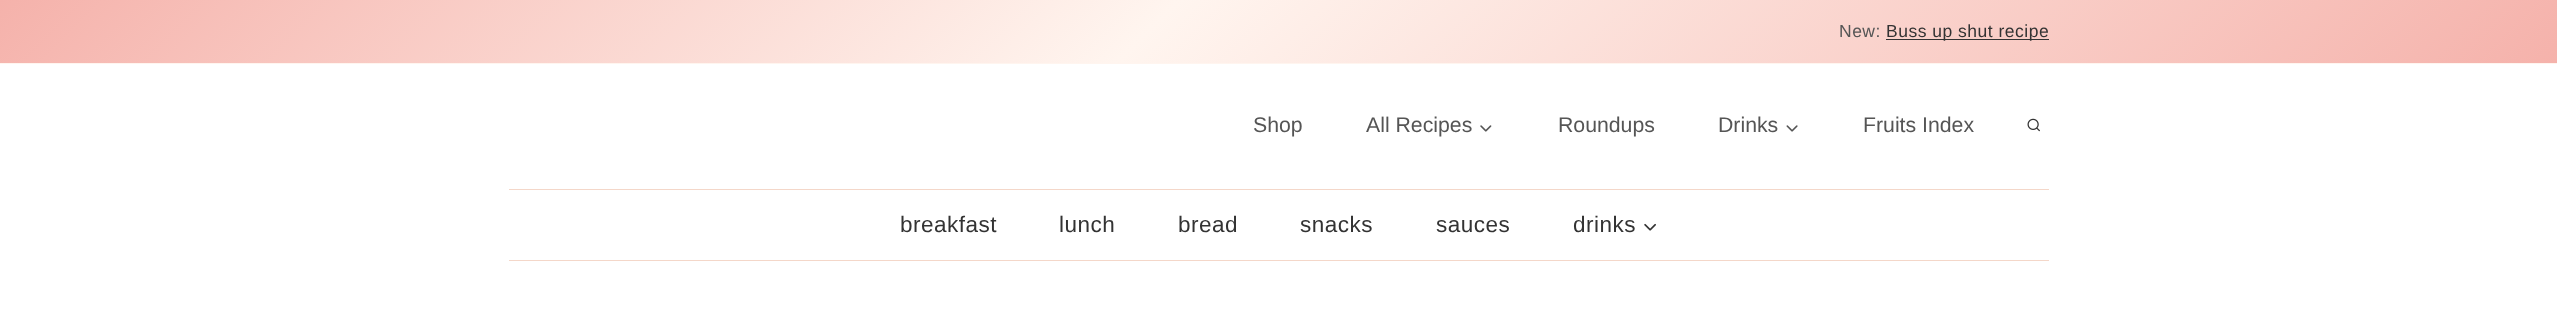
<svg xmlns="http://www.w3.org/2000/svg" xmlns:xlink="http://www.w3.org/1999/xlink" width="2557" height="332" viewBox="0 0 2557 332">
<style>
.cls-1{font:17.5px Liberation Sans;letter-spacing:0.5px;fill:#555555}
.cls-2{font:17.5px Liberation Sans;letter-spacing:0.5px;fill:#333333}
.cls-3{font:21.25px Liberation Sans;fill:#555555}
.cls-4{font:22.5px Liberation Sans;letter-spacing:0.5px;fill:#333333}
</style>
<defs>
<linearGradient id="g1" gradientUnits="userSpaceOnUse" x1="624" y1="-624" x2="1934" y2="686"><stop offset="0" stop-color="#f5b2ab"/><stop offset="0.45" stop-color="#fff5ef"/><stop offset="1" stop-color="#f5b2ab"/></linearGradient>
</defs>
<rect width="100%" height="100%" fill="#ffffff"/>
<rect fill="url(#g1)" x="0" y="0" width="2557" height="63"/>
<rect fill="#fff5ef" x="0" y="63" width="2557" height="1"/>
<rect fill="#333333" x="1886" y="39" width="163" height="1"/>
<image xlink:href="image0.png" x="1480" y="125" width="12" height="7"/>
<image xlink:href="image1.png" x="1786" y="125" width="12" height="7"/>
<image xlink:href="image2.png" x="2027" y="118" width="13" height="14"/>
<rect fill="#f4d7c9" x="509" y="189" width="1540" height="1"/>
<rect fill="#f4d7c9" x="509" y="260" width="1540" height="1"/>
<image xlink:href="image3.png" x="1644" y="223" width="12" height="8"/>
<text class="cls-1" x="1839" y="37">New:</text>
<text class="cls-2" x="1886" y="37">Buss up shut recipe</text>
<text class="cls-3" x="1253" y="132">Shop</text>
<text class="cls-3" x="1366" y="132">All Recipes</text>
<text class="cls-3" x="1558" y="132">Roundups</text>
<text class="cls-3" x="1718" y="132">Drinks</text>
<text class="cls-3" x="1863" y="132">Fruits Index</text>
<text class="cls-4" x="900" y="232">breakfast</text>
<text class="cls-4" x="1059" y="232">lunch</text>
<text class="cls-4" x="1178" y="232">bread</text>
<text class="cls-4" x="1300" y="232">snacks</text>
<text class="cls-4" x="1436" y="232">sauces</text>
<text class="cls-4" x="1573" y="232">drinks</text>
</svg>
